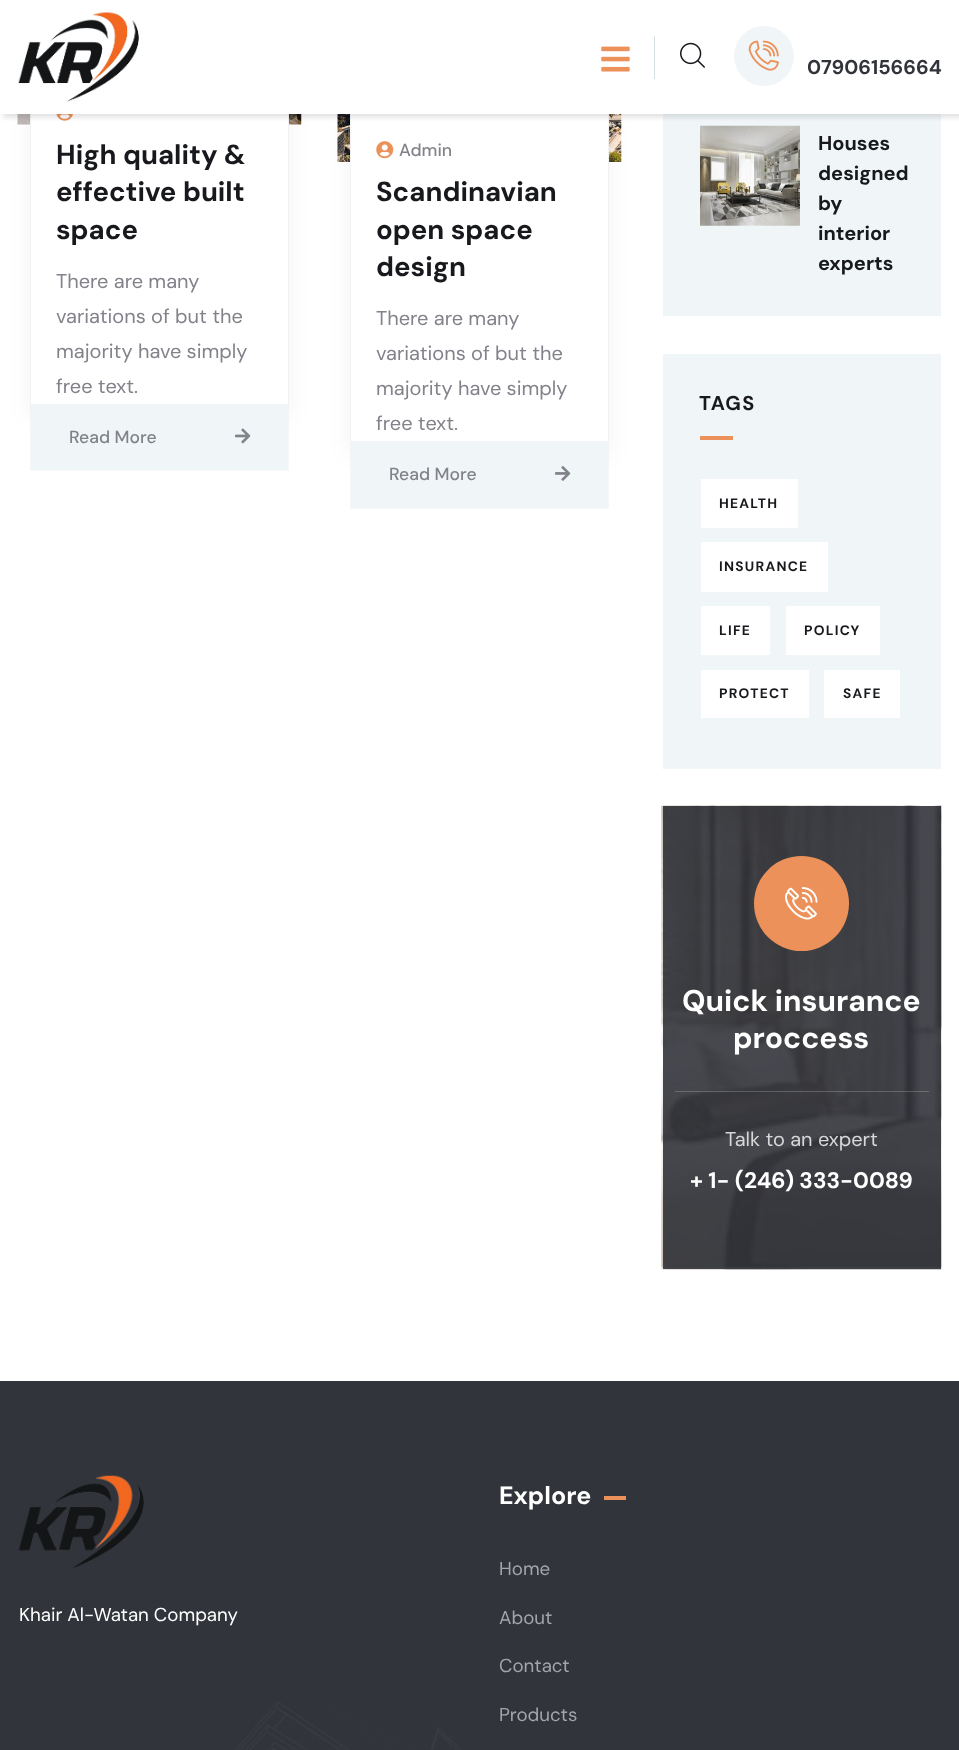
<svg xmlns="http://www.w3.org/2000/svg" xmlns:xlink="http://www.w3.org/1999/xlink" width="959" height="1750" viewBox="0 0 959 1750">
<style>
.cls-1{font:bold 20px DM Sans;fill:#32343b}
.cls-2{font:bold 27.5px DM Sans;fill:#18191d}
.cls-3{font:20px DM Sans;fill:#82828a}
.cls-4{font:500 17.5px DM Sans;fill:#82828a}
.cls-5{font:bold 20px DM Sans;fill:#18191d}
.cls-6{font:bold 20px DM Sans;letter-spacing:1.25px;fill:#18191d}
.cls-7{font:bold 13.75px DM Sans;letter-spacing:1.25px;fill:#18191d}
.cls-8{font:bold 30px DM Sans;fill:#ffffff}
.cls-9{font:20px DM Sans;fill:#d7d7d8}
.cls-10{font:bold 22.5px DM Sans;fill:#ffffff}
.cls-11{font:18.75px DM Sans;fill:#ffffff}
.cls-12{font:bold 25px DM Sans;fill:#ffffff}
.cls-13{font:18.75px DM Sans;fill:#a2a5ae}
</style>
<defs>
<clipPath id="clip1"><path d="M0 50H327V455H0ZM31 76H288V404H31Z" clip-rule="evenodd"/></clipPath>
<clipPath id="clip2"><path d="M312 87H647V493H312ZM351 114H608V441H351Z" clip-rule="evenodd"/></clipPath>
</defs>
<rect width="100%" height="100%" fill="#ffffff"/>
<rect fill="#47484f" x="663" y="806" width="278" height="463"/>
<image xlink:href="image4.png" x="17" y="114" width="285" height="11"/>
<rect fill="#ffffff" x="31" y="114" width="257" height="11"/>
<rect fill="none" stroke="#f7f7f7" x="30.5" y="75.5" width="258" height="395"/>
<g clip-path="url(#clip1)">
<rect fill="#000000" fill-opacity="0.05" filter="blur(12.5px)" x="31" y="89" width="257" height="327"/>
</g>
<image xlink:href="image5.png" x="56" y="114" width="17" height="7"/>
<image xlink:href="image7.png" x="337" y="114" width="285" height="48"/>
<rect fill="#ffffff" x="351" y="114" width="257" height="48"/>
<rect fill="none" stroke="#f7f7f7" x="350.5" y="113.5" width="258" height="395"/>
<rect fill="#f0f6f8" x="663" y="114" width="278" height="202"/>
<rect fill="#000000" fill-opacity="0.1" filter="blur(2px)" x="3" y="4" width="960" height="114"/>
<g clip-path="url(#clip2)">
<rect fill="#000000" fill-opacity="0.05" filter="blur(12.5px)" x="351" y="126" width="257" height="328"/>
</g>
<rect fill="#ffffff" x="0" y="1" width="959" height="113"/>
<image xlink:href="image0.png" x="18" y="12" width="121" height="90"/>
<image xlink:href="image1.png" x="601" y="46" width="29" height="26"/>
<rect fill="#d3dee2" x="654" y="36" width="1" height="43"/>
<image xlink:href="image2.png" x="680" y="42" width="25" height="26"/>
<circle fill="#f0f6f8" cx="764" cy="56" r="30"/>
<image xlink:href="image3.png" x="748" y="40" width="31" height="31"/>
<rect fill="#f0f6f8" x="31" y="404" width="257" height="66"/>
<image xlink:href="image6.png" x="235" y="428" width="16" height="16"/>
<image xlink:href="image8.png" x="376" y="141" width="18" height="18"/>
<rect fill="#f0f6f8" x="351" y="441" width="257" height="67"/>
<image xlink:href="image9.png" x="555" y="466" width="16" height="15"/>
<image xlink:href="image10.png" x="700" y="125" width="100" height="101"/>
<rect fill="#f0f6f8" x="663" y="354" width="278" height="415"/>
<rect fill="#ec915a" x="700" y="436" width="33" height="4"/>
<rect fill="#ffffff" x="701" y="479" width="97" height="49"/>
<rect fill="#ffffff" x="701" y="542" width="127" height="50"/>
<rect fill="#ffffff" x="701" y="606" width="69" height="49"/>
<rect fill="#ffffff" x="786" y="606" width="94" height="49"/>
<rect fill="#ffffff" x="701" y="670" width="108" height="48"/>
<rect fill="#ffffff" x="824" y="670" width="76" height="48"/>
<image xlink:href="image11.png" x="661" y="805" width="281" height="465"/>
<rect fill="#ffffff" fill-opacity="0.2" x="675" y="1091" width="254" height="1"/>
<circle fill="#ec915a" cx="801.5" cy="903.5" r="47.5"/>
<image xlink:href="image12.png" x="785" y="887" width="33" height="33"/>
<rect fill="#32343b" x="0" y="1381" width="959" height="369"/>
<image xlink:href="image13.png" x="18" y="1475" width="126" height="94"/>
<rect fill="#ec915a" x="604" y="1496" width="22" height="4"/>
<image xlink:href="image14.png" x="235" y="1702" width="226" height="48"/>
<text class="cls-1" x="807" y="74">07906156664</text>
<text class="cls-2"><tspan x="56" y="164">High quality &amp;</tspan><tspan x="56" y="201">effective built</tspan><tspan x="56" y="239">space</tspan></text>
<text class="cls-3"><tspan x="56" y="288">There are many</tspan><tspan x="56" y="323">variations of but the</tspan><tspan x="56" y="358">majority have simply</tspan><tspan x="56" y="393">free text.</tspan></text>
<text class="cls-4" x="69" y="443">Read More</text>
<text class="cls-4" x="399" y="156">Admin</text>
<text class="cls-2"><tspan x="376" y="201">Scandinavian</tspan><tspan x="376" y="239">open space</tspan><tspan x="376" y="276">design</tspan></text>
<text class="cls-3"><tspan x="376" y="325">There are many</tspan><tspan x="376" y="360">variations of but the</tspan><tspan x="376" y="395">majority have simply</tspan><tspan x="376" y="430">free text.</tspan></text>
<text class="cls-4" x="389" y="480">Read More</text>
<text class="cls-5"><tspan x="818" y="150">Houses</tspan><tspan x="818" y="180">designed</tspan><tspan x="818" y="210">by</tspan><tspan x="818" y="240">interior</tspan><tspan x="818" y="270">experts</tspan></text>
<text class="cls-6" x="699" y="410">TAGS</text>
<text class="cls-7" x="719" y="508">HEALTH</text>
<text class="cls-7" x="719" y="571">INSURANCE</text>
<text class="cls-7" x="719" y="635">LIFE</text>
<text class="cls-7" x="804" y="635">POLICY</text>
<text class="cls-7" x="719" y="698">PROTECT</text>
<text class="cls-7" x="843" y="698">SAFE</text>
<text class="cls-8" x="682" y="1011">Quick insurance</text>
<text class="cls-8" x="733" y="1048">proccess</text>
<text class="cls-9" x="725" y="1146">Talk to an expert</text>
<text class="cls-10" x="690" y="1188">+ 1- (246) 333-0089</text>
<text class="cls-11" x="19" y="1621">Khair Al-Watan Company</text>
<text class="cls-12" x="499" y="1504">Explore</text>
<text class="cls-13" x="499" y="1575">Home</text>
<text class="cls-13" x="499" y="1624">About</text>
<text class="cls-13" x="499" y="1672">Contact</text>
<text class="cls-13" x="499" y="1721">Products</text>
</svg>
